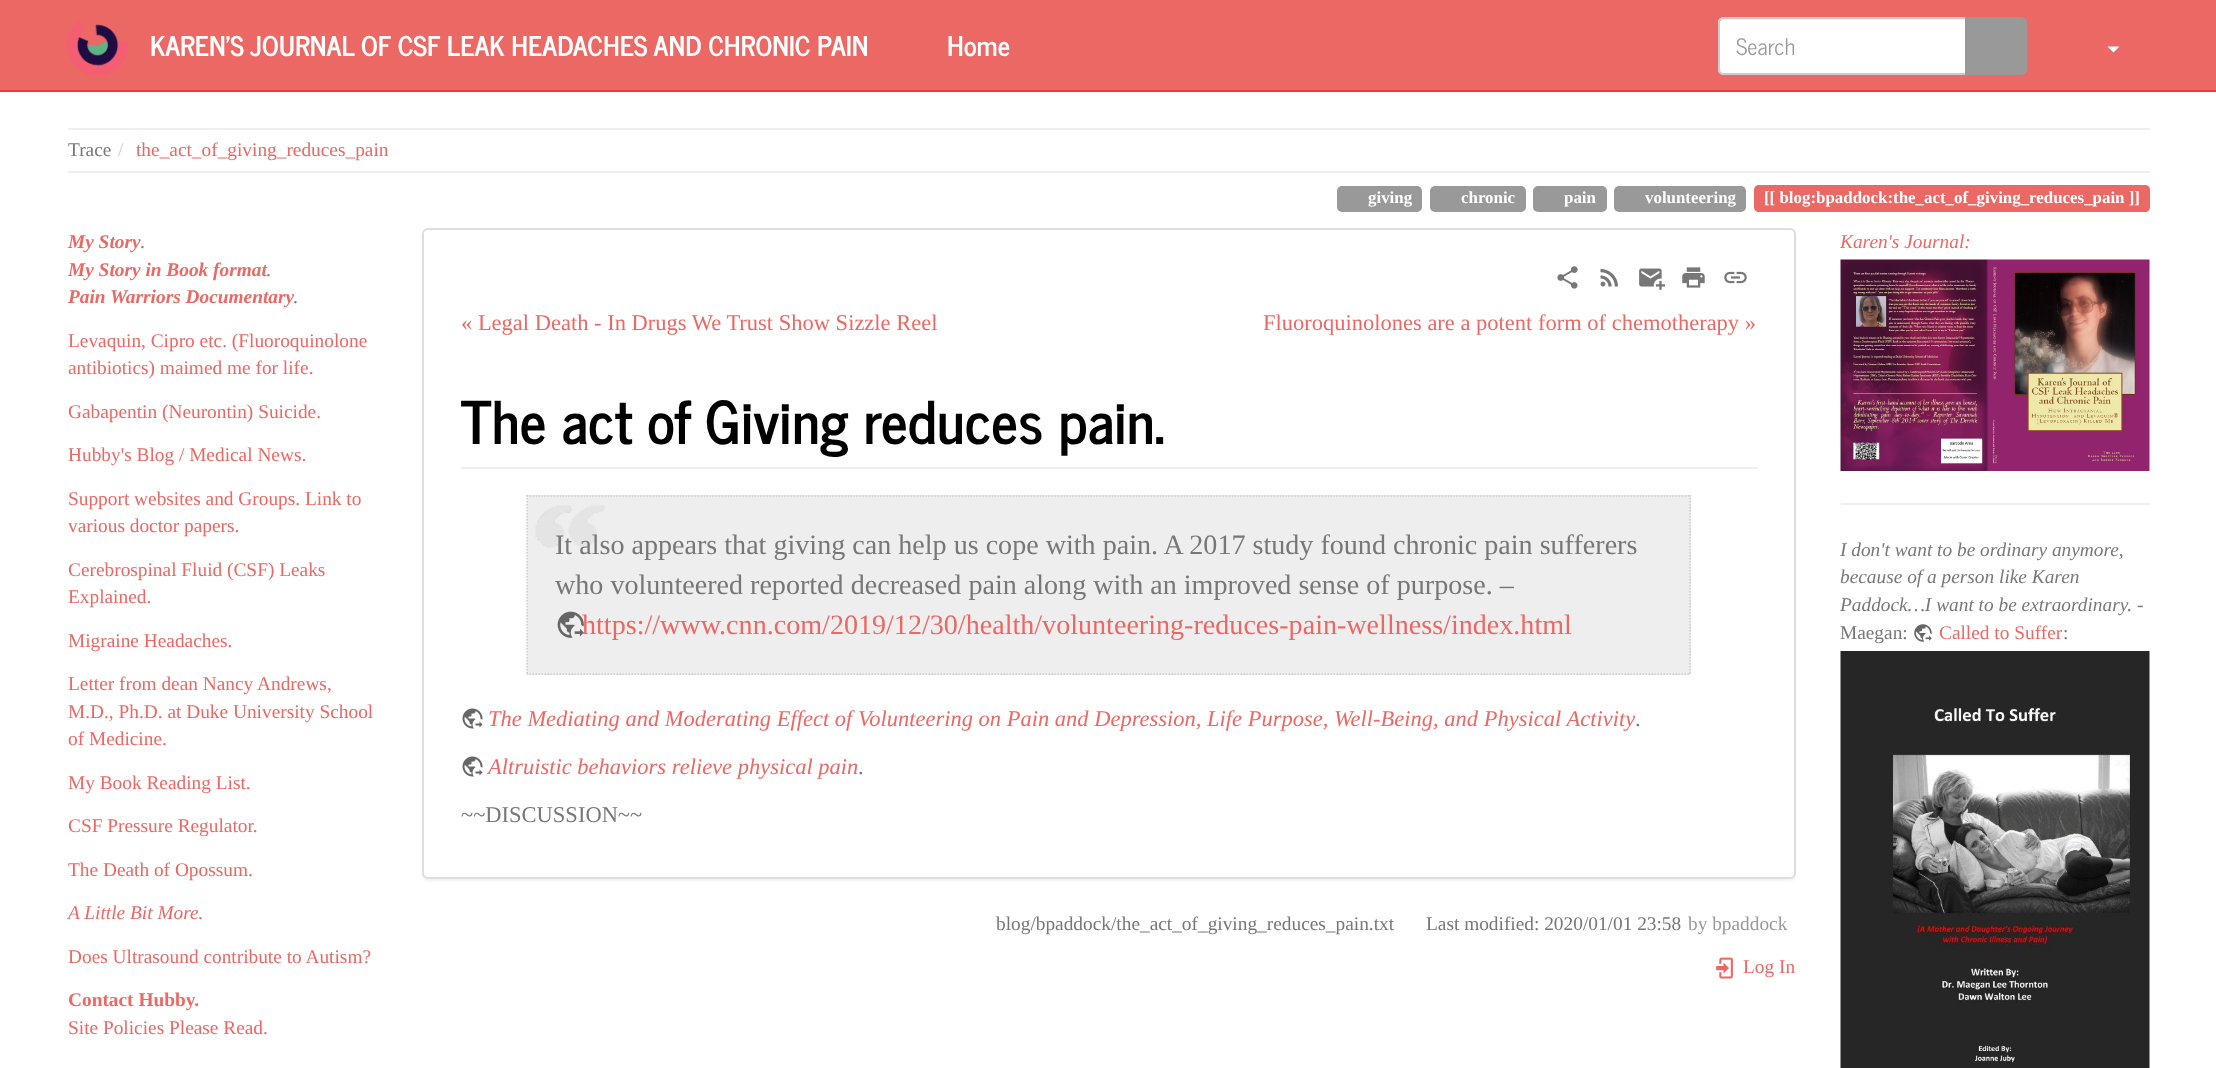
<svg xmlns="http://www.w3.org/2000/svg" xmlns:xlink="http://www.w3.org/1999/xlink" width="2216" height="1068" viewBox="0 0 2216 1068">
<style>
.cls-1{font:bold 27px News Cycle;fill:#ffffff}
.cls-2{font:22.5px News Cycle;fill:#999999}
.cls-3{font:19.35px Liberation Serif;fill:#777777}
.cls-4{font:19.35px Liberation Serif;fill:#cccccc}
.cls-5{font:19.35px Liberation Serif;fill:#eb6864}
.cls-6{font:bold 16.9px Liberation Serif;fill:#ffffff}
.cls-7{font:italic bold 19.35px Liberation Serif;fill:#eb6864}
.cls-8{font:italic 19.35px Liberation Serif;fill:#eb6864}
.cls-9{font:bold 19.35px Liberation Serif;fill:#eb6864}
.cls-10{font:22.5px Liberation Serif;fill:#eb6864}
.cls-11{font:bold 58.5px News Cycle;fill:#000000}
.cls-12{font:28.1px Liberation Serif;fill:#777777}
.cls-13{font:28.1px Liberation Serif;fill:#eb6864}
.cls-14{font:italic 22.5px Liberation Serif;fill:#eb6864}
.cls-15{font:22.5px Liberation Serif;fill:#777777}
.cls-16{font:19.35px Liberation Serif;fill:#999999}
.cls-17{font:italic 19.35px Liberation Serif;fill:#777777}
</style>
<rect width="100%" height="100%" fill="#ffffff"/>
<rect fill="#eb6864" x="0" y="0" width="2216" height="90"/>
<rect fill="#e53c37" x="0" y="90" width="2216" height="2"/>
<image xlink:href="image0.png" x="67" y="22" width="61" height="53"/>
<path fill="#ffffff" d="M1724 17H1967V75H1724C1720.5 75 1718 72.5 1718 69V23C1718 19.5 1720.5 17 1724 17Z"/>
<path fill="#ececec" d="M1724 20H1965V18H1724C1721 18 1719 20 1719 23V24C1719 22 1721 20 1724 20Z"/>
<path fill="none" stroke="#cccccc" stroke-width="2" d="M1724 18H1966V74H1724C1721 74 1719 72 1719 69V23C1719 20 1721 18 1724 18Z"/>
<path fill="#999999" stroke="#999999" stroke-width="2" d="M1966 18H2021C2024 18 2026 20 2026 23V69C2026 72 2024 74 2021 74H1966Z"/>
<path fill="#ffffff" d="M2107.5 46.5H2119.5L2113.5 52.5Z"/>
<rect fill="#eeeeee" x="68" y="128" width="2082" height="2"/>
<rect fill="#eeeeee" x="68" y="171" width="2082" height="2"/>
<rect fill="#999999" x="1337" y="186" width="85" height="26" rx="5"/>
<rect fill="#999999" x="1430" y="186" width="96" height="26" rx="5"/>
<rect fill="#999999" x="1533" y="186" width="74" height="26" rx="5"/>
<rect fill="#999999" x="1614" y="186" width="132" height="26" rx="5"/>
<path fill="#eb6864" d="M1759 185H1779V212H1759C1756 212 1754 210 1754 207V190C1754 187 1756 185 1759 185Z"/>
<rect fill="#eb6864" x="1779" y="185" width="345" height="27"/>
<path fill="#eb6864" d="M2124 185H2145C2148 185 2150 187 2150 190V207C2150 210 2148 212 2145 212H2124Z"/>
<rect fill="#000000" fill-opacity="0.05" filter="blur(1px)" x="422" y="230" width="1374" height="651" rx="6"/>
<rect fill="#ffffff" stroke="#dddddd" stroke-width="2" x="423" y="229" width="1372" height="649" rx="5"/>
<image xlink:href="image1.png" x="1557" y="266" width="21" height="23"/>
<image xlink:href="image2.png" x="1600" y="269" width="18" height="18"/>
<image xlink:href="image3.png" x="1639" y="268" width="26" height="22"/>
<image xlink:href="image4.png" x="1682" y="267" width="23" height="21"/>
<image xlink:href="image5.png" x="1724" y="271" width="23" height="13"/>
<rect fill="#eeeeee" x="461" y="467" width="1296" height="2"/>
<rect fill="#eeeeee" x="527" y="495" width="1164" height="180"/>
<image xlink:href="image6.png" x="535" y="505" width="70" height="43"/>
<path fill="none" stroke="#cccccc" stroke-width="1.5" stroke-dasharray="1.5 1.5" d="M526.5 496H1690.5"/>
<path fill="none" stroke="#cccccc" stroke-width="1.5" stroke-dasharray="1.5 1.5" d="M1690 495V675"/>
<path fill="none" stroke="#cccccc" stroke-width="1.5" stroke-dasharray="1.5 1.5" d="M526.5 674H1690.5"/>
<path fill="none" stroke="#cccccc" stroke-width="1.5" stroke-dasharray="1.5 1.5" d="M527 495V675"/>
<image xlink:href="image7.png" x="557" y="611" width="27" height="27"/>
<image xlink:href="image8.png" x="462" y="708" width="21" height="21"/>
<image xlink:href="image8.png" x="462" y="756" width="21" height="21"/>
<image xlink:href="image9.png" x="1716" y="957" width="17" height="22"/>
<image xlink:href="image10.png" x="1840" y="259" width="310" height="212"/>
<rect fill="#eeeeee" x="1841" y="503" width="309" height="2"/>
<image xlink:href="image11.png" x="1914" y="624" width="18" height="18"/>
<image xlink:href="image12.png" x="1840" y="651" width="310" height="417"/>
<text class="cls-1" x="150" y="56">KAREN'S JOURNAL OF CSF LEAK HEADACHES AND CHRONIC PAIN</text>
<text class="cls-1" x="947" y="56">Home</text>
<text class="cls-2" x="1736" y="55">Search</text>
<text class="cls-3" x="68" y="156">Trace</text>
<text class="cls-4" x="118" y="156">/</text>
<text class="cls-5" x="136" y="156">the_act_of_giving_reduces_pain</text>
<text class="cls-6" x="1368" y="203">giving</text>
<text class="cls-6" x="1461" y="203">chronic</text>
<text class="cls-6" x="1564" y="203">pain</text>
<text class="cls-6" x="1645" y="203">volunteering</text>
<text class="cls-6" x="1764" y="203">[[ blog:bpaddock:the_act_of_giving_reduces_pain ]]</text>
<text class="cls-7" x="68" y="248">My Story</text>
<text class="cls-3" x="140" y="248">.</text>
<text class="cls-7" x="68" y="276">My Story in Book format</text>
<text class="cls-3" x="266" y="276">.</text>
<text class="cls-7" x="68" y="303">Pain Warriors Documentary</text>
<text class="cls-3" x="293" y="303">.</text>
<text class="cls-5"><tspan x="68" y="347">Levaquin, Cipro etc. (Fluoroquinolone</tspan><tspan x="68" y="374">antibiotics) maimed me for life.</tspan></text>
<text class="cls-5" x="68" y="418">Gabapentin (Neurontin) Suicide.</text>
<text class="cls-5" x="68" y="461">Hubby's Blog / Medical News.</text>
<text class="cls-5"><tspan x="68" y="505">Support websites and Groups. Link to</tspan><tspan x="68" y="532">various doctor papers.</tspan></text>
<text class="cls-5"><tspan x="68" y="576">Cerebrospinal Fluid (CSF) Leaks</tspan><tspan x="68" y="603">Explained.</tspan></text>
<text class="cls-5" x="68" y="647">Migraine Headaches.</text>
<text class="cls-5"><tspan x="68" y="690">Letter from dean Nancy Andrews,</tspan><tspan x="68" y="718">M.D., Ph.D. at Duke University School</tspan><tspan x="68" y="745">of Medicine.</tspan></text>
<text class="cls-5" x="68" y="789">My Book Reading List.</text>
<text class="cls-5" x="68" y="832">CSF Pressure Regulator.</text>
<text class="cls-5" x="68" y="876">The Death of Opossum.</text>
<text class="cls-8" x="68" y="919">A Little Bit More.</text>
<text class="cls-5" x="68" y="963">Does Ultrasound contribute to Autism?</text>
<text class="cls-9" x="68" y="1006">Contact Hubby.</text>
<text class="cls-5" x="68" y="1034">Site Policies Please Read.</text>
<text class="cls-10" x="461" y="330">« Legal Death - In Drugs We Trust Show Sizzle Reel</text>
<text class="cls-10" x="1263" y="330">Fluoroquinolones are a potent form of chemotherapy »</text>
<text class="cls-11" x="461" y="444">The act of Giving reduces pain.</text>
<text class="cls-12"><tspan x="555" y="554">It also appears that giving can help us cope with pain. A 2017 study found chronic pain sufferers</tspan><tspan x="555" y="594">who volunteered reported decreased pain along with an improved sense of purpose. –</tspan></text>
<text class="cls-13" x="582" y="634">https://www.cnn.com/2019/12/30/health/volunteering-reduces-pain-wellness/index.html</text>
<text class="cls-14" x="488" y="726">The Mediating and Moderating Effect of Volunteering on Pain and Depression, Life Purpose, Well-Being, and Physical Activity</text>
<text class="cls-15" x="1635" y="726">.</text>
<text class="cls-14" x="488" y="774">Altruistic behaviors relieve physical pain</text>
<text class="cls-15" x="858" y="774">.</text>
<text class="cls-15" x="461" y="822">~~DISCUSSION~~</text>
<text class="cls-3" x="996" y="930">blog/bpaddock/the_act_of_giving_reduces_pain.txt</text>
<text class="cls-3" x="1426" y="930">Last modified: 2020/01/01 23:58</text>
<text class="cls-16" x="1688" y="930">by bpaddock</text>
<text class="cls-5" x="1743" y="973">Log In</text>
<text class="cls-8" x="1840" y="248">Karen's Journal:</text>
<text class="cls-17"><tspan x="1840" y="556">I don't want to be ordinary anymore,</tspan><tspan x="1840" y="583">because of a person like Karen</tspan><tspan x="1840" y="611">Paddock…I want to be extraordinary.</tspan></text>
<text class="cls-3" x="2137" y="611">-</text>
<text class="cls-3" x="1840" y="639">Maegan:</text>
<text class="cls-5" x="1939" y="639">Called to Suffer</text>
<text class="cls-3" x="2063" y="639">:</text>
</svg>
